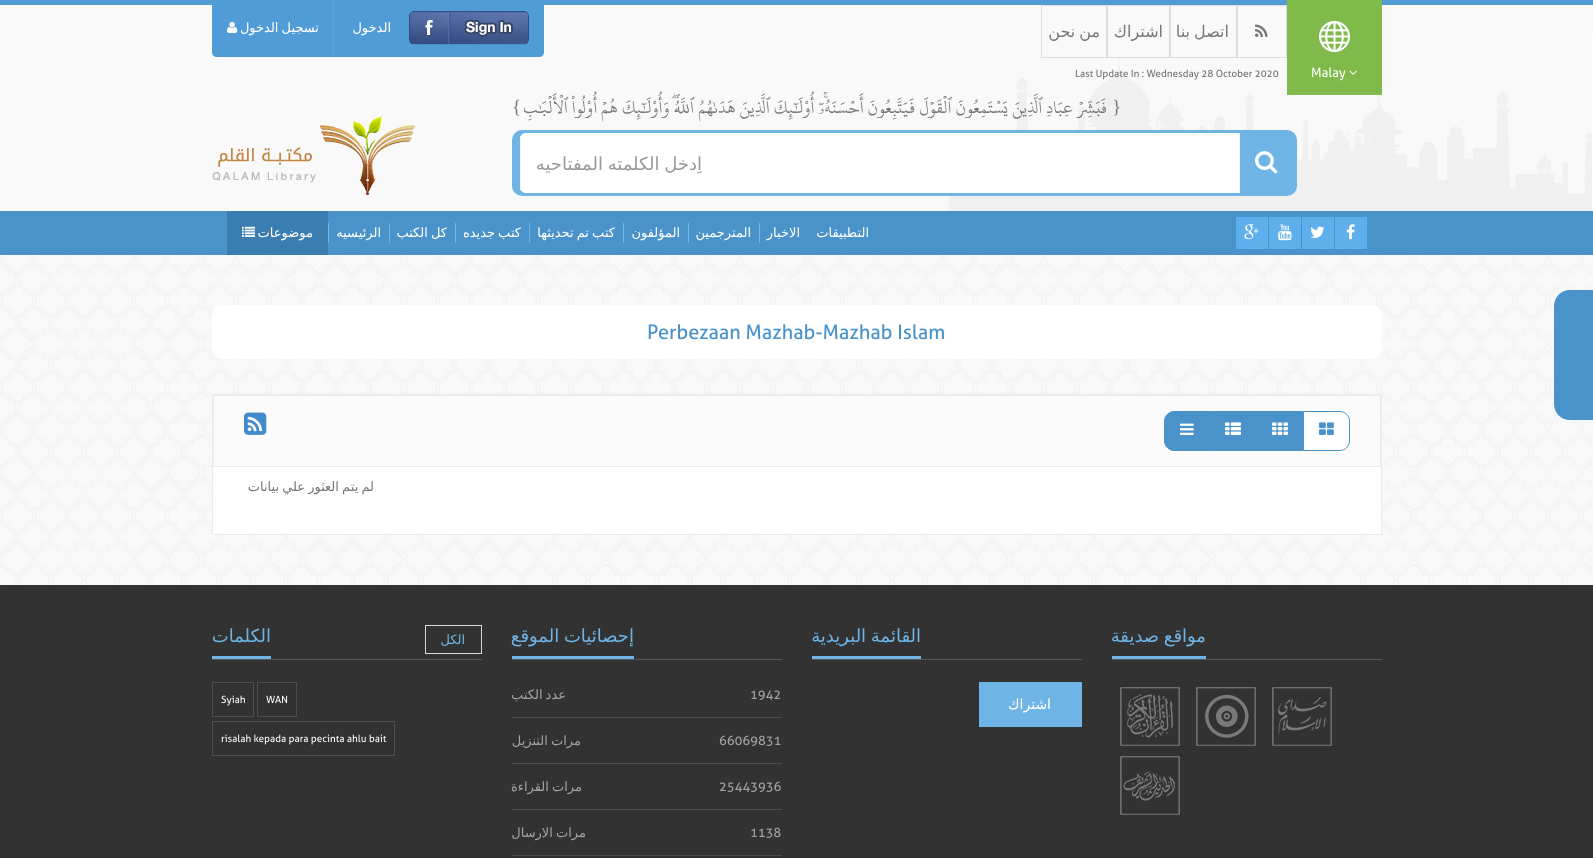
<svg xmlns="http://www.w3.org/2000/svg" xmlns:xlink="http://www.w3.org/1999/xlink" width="1593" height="858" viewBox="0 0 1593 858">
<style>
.cls-1{font:16px DejaVu Sans;direction:rtl;fill:#787878}
.cls-2{font:13px DejaVu Sans;direction:rtl;fill:#ffffff}
.cls-3{font:19px Liberation Serif;fill:#787878}
.cls-4{font:19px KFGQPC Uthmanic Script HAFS;direction:rtl;fill:#787878}
.cls-5{font:18px DejaVu Sans;direction:rtl;fill:#999999}
.cls-6{font:16px DejaVu Sans;direction:rtl;fill:#ffffff}
.cls-7{font:13px DejaVu Sans;direction:rtl;fill:#787878}
.cls-8{font:18px DejaVu Sans;direction:rtl;fill:#6eb4e5}
.cls-9{font:14px DejaVu Sans;direction:rtl;fill:#ffffff}
.cls-10{font:13px DejaVu Sans;direction:rtl;fill:#a3a3a3}
.cls-11{font:13px DejaVu Sans;direction:rtl;fill:#6eb4e5}
</style>
<rect width="100%" height="100%" fill="#ffffff"/>
<image xlink:href="image0.png" x="0" y="255" width="1593" height="330"/>
<rect fill="#f9f9f9" x="0" y="5" width="1593" height="206"/>
<image xlink:href="image1.png" x="949" y="35" width="644" height="176"/>
<rect fill="#509cd7" x="0" y="0" width="1593" height="5"/>
<rect fill="#7fba4b" x="1287" y="0" width="95" height="95"/>
<image xlink:href="image2.png" x="1319" y="21" width="31" height="31"/>
<image xlink:href="image3.png" x="1349" y="70" width="8" height="5"/>
<image xlink:href="image4.png" x="1312" y="67" width="34" height="14"/>
<rect fill="none" stroke="#dddddd" x="1237.5" y="5.5" width="49" height="52"/>
<image xlink:href="image5.png" x="1255" y="24" width="13" height="13"/>
<rect fill="none" stroke="#dddddd" x="1170.5" y="5.5" width="66" height="52"/>
<rect fill="none" stroke="#dddddd" x="1107.5" y="5.5" width="62" height="52"/>
<rect fill="none" stroke="#dddddd" x="1041.5" y="5.5" width="65" height="52"/>
<image xlink:href="image6.png" x="1075" y="69" width="204" height="11"/>
<path fill="#509cd7" d="M212 5H544V52C544 55 542 57 539 57H217C214 57 212 55 212 52Z"/>
<image xlink:href="image7.png" x="409" y="11" width="120" height="34"/>
<rect fill="#5aa6e2" x="333" y="0" width="1" height="56"/>
<image xlink:href="image8.png" x="227" y="21" width="11" height="12"/>
<rect fill="#6eb4e5" stroke="#6eb4e5" stroke-width="3" x="513.5" y="131.5" width="782" height="63" rx="8.5"/>
<image xlink:href="image9.png" x="1255" y="151" width="23" height="23"/>
<path fill="#ffffff" d="M526 133H1240V193H526C522.5 193 520 190.5 520 187V139C520 135.5 522.5 133 526 133Z"/>
<rect fill="#f1f1f1" x="1239" y="133" width="1" height="60"/>
<rect fill="#f1f1f1" x="520" y="136" width="1" height="54"/>
<image xlink:href="image10.png" x="212" y="115" width="203" height="80"/>
<rect fill="#4992ca" x="0" y="211" width="1593" height="44"/>
<rect fill="#5fafec" x="1335" y="217" width="32" height="32"/>
<image xlink:href="image11.png" x="1346" y="224" width="9" height="16"/>
<rect fill="#5fafec" x="1302" y="217" width="32" height="32"/>
<image xlink:href="image12.png" x="1310" y="226" width="15" height="12"/>
<rect fill="#5fafec" x="1269" y="217" width="32" height="32"/>
<image xlink:href="image13.png" x="1278" y="224" width="14" height="17"/>
<rect fill="#5fafec" x="1236" y="217" width="32" height="32"/>
<image xlink:href="image14.png" x="1244" y="224" width="15" height="16"/>
<rect fill="#6eb4e5" x="759" y="223" width="1" height="20"/>
<rect fill="#6eb4e5" x="688" y="223" width="1" height="20"/>
<rect fill="#6eb4e5" x="623" y="223" width="1" height="20"/>
<rect fill="#6eb4e5" x="529" y="223" width="1" height="20"/>
<rect fill="#6eb4e5" x="455" y="223" width="1" height="20"/>
<rect fill="#6eb4e5" x="389" y="223" width="1" height="20"/>
<rect fill="#6eb4e5" x="328" y="223" width="1" height="20"/>
<rect fill="#3a7db0" x="227" y="211" width="101" height="44"/>
<image xlink:href="image15.png" x="242" y="226" width="13" height="11"/>
<path fill="#4992ca" d="M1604 290V420H1570C1561 420 1554 413 1554 404V306C1554 297 1561 290 1570 290Z"/>
<rect fill="#ffffff" x="212" y="305" width="1170" height="54" rx="10"/>
<image xlink:href="image16.png" x="648" y="324" width="296" height="16"/>
<rect fill="#ffffff" x="213" y="467" width="1168" height="67"/>
<rect fill="none" stroke="#ebebeb" x="212.5" y="394.5" width="1169" height="140"/>
<rect fill="#fbfbfb" stroke="#ebebeb" x="213.5" y="395.5" width="1167" height="71"/>
<path fill="#ffffff" stroke="#4992ca" d="M1303.5 411.5H1340C1345 411.5 1349.5 416 1349.5 421V441C1349.5 446 1345 450.5 1340 450.5H1303.5Z"/>
<image xlink:href="image17.png" x="1319" y="422" width="15" height="13"/>
<rect fill="#4992ca" x="1210" y="411" width="93" height="40"/>
<image xlink:href="image18.png" x="1225" y="422" width="16" height="13"/>
<path fill="#4992ca" stroke="#4992ca" d="M1174 411.5H1209.5V450.5H1174C1169 450.5 1164.5 446 1164.5 441V421C1164.5 416 1169 411.5 1174 411.5Z"/>
<image xlink:href="image19.png" x="1180" y="423" width="14" height="12"/>
<image xlink:href="image20.png" x="1272" y="422" width="16" height="13"/>
<image xlink:href="image21.png" x="244" y="412" width="23" height="23"/>
<rect fill="#323232" x="0" y="585" width="1593" height="273"/>
<rect fill="#555555" x="1112" y="659" width="270" height="1"/>
<rect fill="#6eb4e5" x="1112" y="656" width="94" height="3"/>
<image xlink:href="image22.png" x="1272" y="687" width="60" height="59"/>
<image xlink:href="image23.png" x="1196" y="687" width="60" height="59"/>
<image xlink:href="image24.png" x="1120" y="687" width="60" height="59"/>
<image xlink:href="image25.png" x="1120" y="756" width="60" height="59"/>
<rect fill="#555555" x="812" y="659" width="270" height="1"/>
<rect fill="#6eb4e5" x="812" y="656" width="109" height="3"/>
<rect fill="#6eb4e5" x="979" y="682" width="103" height="45"/>
<rect fill="#555555" x="512" y="659" width="270" height="1"/>
<rect fill="#6eb4e5" x="512" y="656" width="122" height="3"/>
<rect fill="#4b4b4b" x="512" y="717" width="270" height="1"/>
<image xlink:href="image26.png" x="751" y="690" width="30" height="10"/>
<rect fill="#4b4b4b" x="512" y="763" width="270" height="1"/>
<image xlink:href="image27.png" x="719" y="735" width="62" height="12"/>
<rect fill="#4b4b4b" x="512" y="809" width="270" height="1"/>
<image xlink:href="image28.png" x="719" y="781" width="62" height="12"/>
<rect fill="#4b4b4b" x="512" y="855" width="270" height="1"/>
<image xlink:href="image29.png" x="751" y="827" width="30" height="11"/>
<rect fill="#555555" x="212" y="659" width="270" height="1"/>
<rect fill="none" stroke="#d7d7d7" x="425.5" y="625.5" width="56" height="28"/>
<rect fill="#6eb4e5" x="212" y="656" width="59" height="3"/>
<rect fill="none" stroke="#4e4e4e" x="257.5" y="682.5" width="39" height="34"/>
<image xlink:href="image30.png" x="266" y="695" width="22" height="9"/>
<rect fill="none" stroke="#4e4e4e" x="212.5" y="682.5" width="41" height="34"/>
<image xlink:href="image31.png" x="221" y="695" width="24" height="11"/>
<rect fill="none" stroke="#4e4e4e" x="212.5" y="721.5" width="182" height="34"/>
<image xlink:href="image32.png" x="221" y="734" width="166" height="11"/>
<text class="cls-1" x="1229" y="37" word-spacing="-1">اتصل بنا</text>
<text class="cls-1" x="1163" y="37">اشتراك</text>
<text class="cls-1" x="1100" y="37" word-spacing="-1">من نحن</text>
<text class="cls-2" x="391" y="32">الدخول</text>
<text class="cls-2" x="319" y="32" word-spacing="-1">تسجيل الدخول</text>
<text class="cls-3" x="1112" y="113">}</text>
<text class="cls-4" x="1107" y="113">فَبَشِّرۡ عِبَادِ ٱلَّذِينَ يَسۡتَمِعُونَ ٱلۡقَوۡلَ فَيَتَّبِعُونَ أَحۡسَنَهُۥٓۚ أُوْلَٰٓئِكَ ٱلَّذِينَ هَدَىٰهُمُ ٱللَّهُۖ وَأُوْلَٰٓئِكَ هُمۡ أُوْلُواْ ٱلۡأَلۡبَٰبِ</text>
<text class="cls-3" x="512" y="113">{</text>
<text class="cls-5" x="702" y="170" word-spacing="-1">اِدخل الکلمته المفتاحیه</text>
<text class="cls-2" x="869" y="237">التطبيقات</text>
<text class="cls-2" x="800" y="237">الاخبار</text>
<text class="cls-2" x="751" y="237">المترجمين</text>
<text class="cls-2" x="680" y="237">المؤلفون</text>
<text class="cls-2" x="615" y="237" word-spacing="-1">كتب تم تحديثها</text>
<text class="cls-2" x="521" y="237" word-spacing="-1">كتب جديده</text>
<text class="cls-2" x="447" y="237" word-spacing="-1">كل الكتب</text>
<text class="cls-2" x="381" y="237">الرئيسيه</text>
<text class="cls-2" x="313" y="237">موضوعات</text>
<text class="cls-6" x="1664" y="310" transform="rotate(90 1664 310)" word-spacing="-1">مساعد البحث</text>
<text class="cls-7" x="374" y="491" word-spacing="-1">لم يتم العثور علي بيانات</text>
<text class="cls-8" x="1206" y="642" word-spacing="-1">مواقع صديقة</text>
<text class="cls-8" x="921" y="642" word-spacing="-1">القائمة البريدية</text>
<text class="cls-9" x="1051" y="709">اشتراك</text>
<text class="cls-8" x="634" y="642" word-spacing="-1">إحصائيات الموقع</text>
<text class="cls-10" x="566" y="699" word-spacing="-1">عدد الكتب</text>
<text class="cls-10" x="581" y="745" word-spacing="-1">مرات التنزيل</text>
<text class="cls-10" x="582" y="791" word-spacing="-1">مرات القراءة</text>
<text class="cls-10" x="586" y="837" word-spacing="-1">مرات الارسال</text>
<text class="cls-11" x="465" y="644">الكل</text>
<text class="cls-8" x="271" y="642">الكلمات</text>
</svg>
